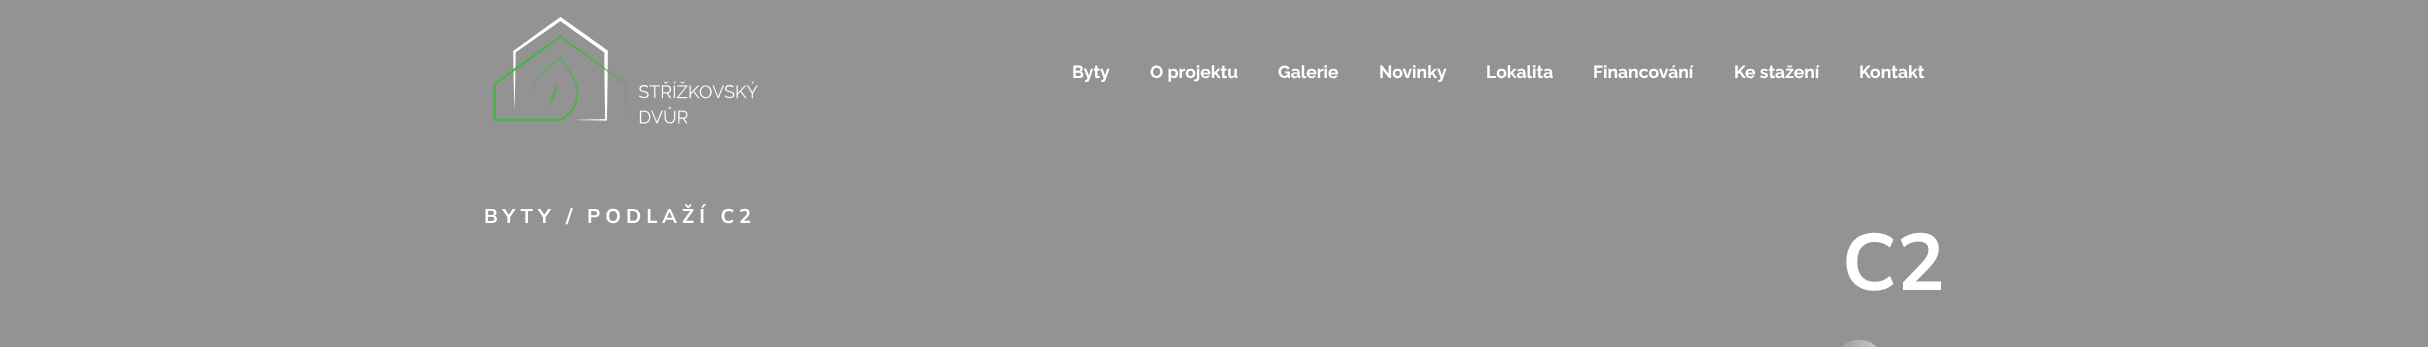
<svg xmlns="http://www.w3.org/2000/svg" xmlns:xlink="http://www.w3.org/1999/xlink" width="2428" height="347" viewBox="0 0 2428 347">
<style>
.cls-1{font:bold 17.5px Raleway;fill:#ffffff}
.cls-2{font:bold 20px Mulish;letter-spacing:5px;fill:#ffffff}
.cls-3{font:bold 80px Mulish;fill:#ffffff}
</style>
<defs>
<linearGradient id="g1" gradientUnits="userSpaceOnUse" x1="1879" y1="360" x2="1839" y2="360"><stop offset="0" stop-color="#c8c8c8"/><stop offset="1" stop-color="#9d9d9d"/></linearGradient>
</defs>
<rect width="100%" height="100%" fill="#f6f6f7"/>
<rect fill="#000000" fill-opacity="0.4" filter="blur(20px)" x="-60" y="-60" width="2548" height="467"/>
<image xlink:href="image0.png" x="493" y="17" width="265" height="107"/>
<rect fill="url(#g1)" x="1839" y="340" width="40" height="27" rx="20"/>
<text class="cls-1" x="1072" y="78">Byty</text>
<text class="cls-1" x="1150" y="78">O projektu</text>
<text class="cls-1" x="1278" y="78">Galerie</text>
<text class="cls-1" x="1379" y="78">Novinky</text>
<text class="cls-1" x="1486" y="78">Lokalita</text>
<text class="cls-1" x="1593" y="78">Financování</text>
<text class="cls-1" x="1734" y="78">Ke stažení</text>
<text class="cls-1" x="1859" y="78">Kontakt</text>
<text class="cls-2" x="484" y="223">BYTY</text>
<text class="cls-2" x="566" y="223">/</text>
<text class="cls-2" x="587" y="223">PODLAŽÍ C2</text>
<text class="cls-3" x="1842" y="290">C2</text>
</svg>
